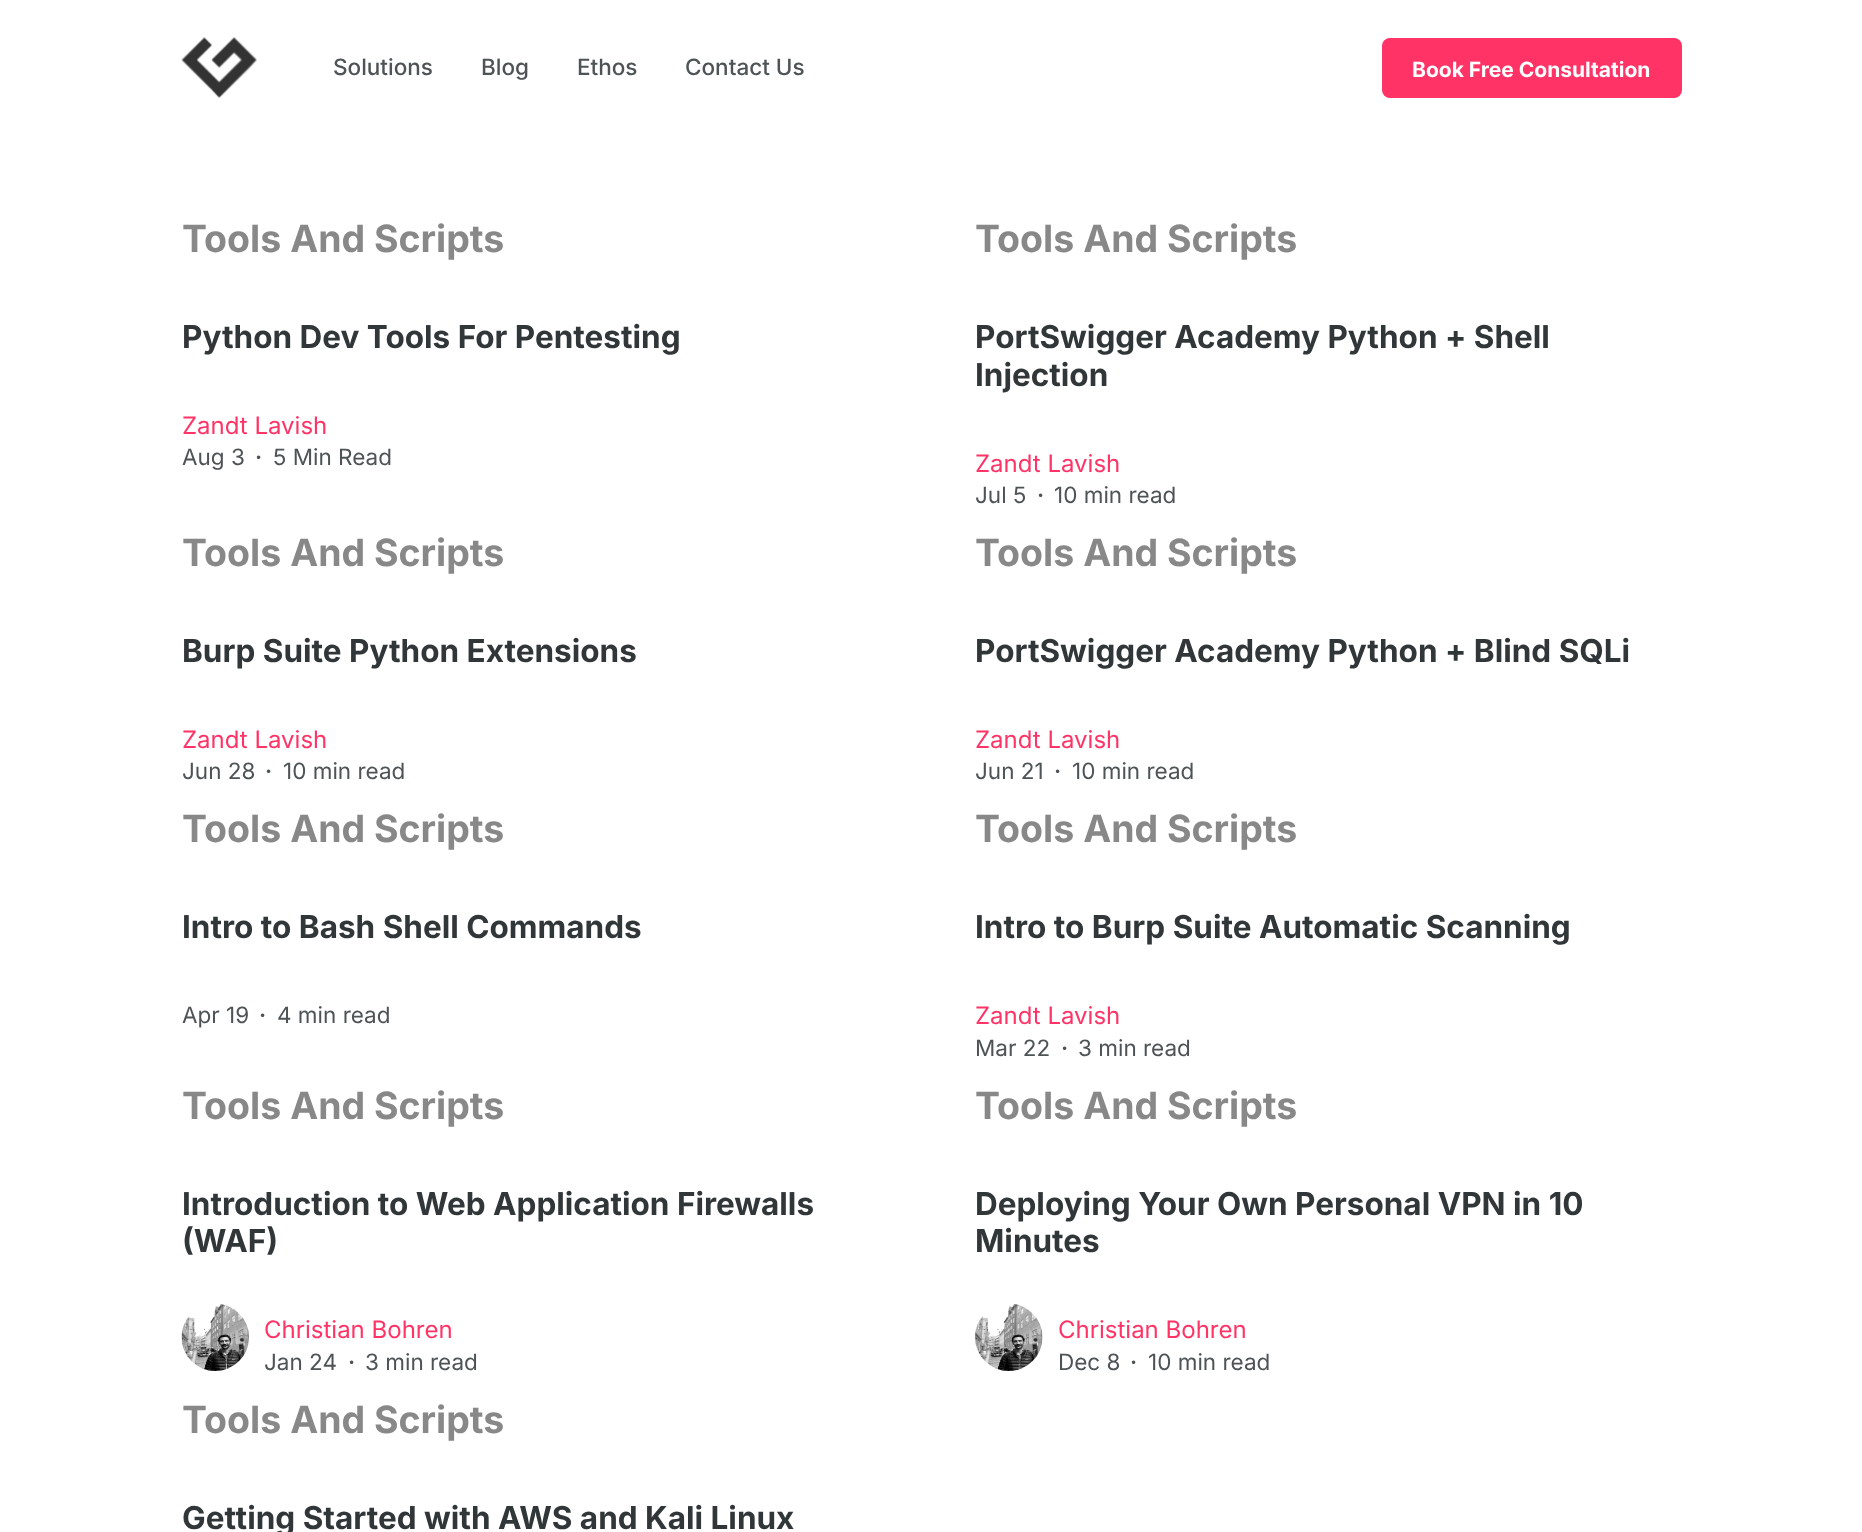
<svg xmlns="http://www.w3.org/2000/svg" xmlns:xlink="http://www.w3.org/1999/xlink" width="1862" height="1532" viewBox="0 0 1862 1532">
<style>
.cls-1{font:500 22.5px Inter;fill:#4e5355}
.cls-2{font:bold 21px Inter;fill:#ffffff}
.cls-3{font:bold 37.5px Inter;fill:#888888}
.cls-4{font:bold 31.5px Inter;fill:#313638}
.cls-5{font:24px Inter;fill:#ff3366}
.cls-6{font:22.5px Inter;fill:#4e5355}
.cls-7{font:600 22.5px Inter;fill:#4e5355}
</style>
<rect width="100%" height="100%" fill="#ffffff"/>
<image xlink:href="image0.png" x="181" y="37" width="76" height="61"/>
<rect fill="#ff3366" x="1382" y="38" width="300" height="60" rx="8"/>
<image xlink:href="image1.png" x="181" y="1304" width="68" height="67"/>
<image xlink:href="image2.png" x="975" y="1304" width="68" height="67"/>
<text class="cls-1" x="333" y="75">Solutions</text>
<text class="cls-1" x="481" y="75">Blog</text>
<text class="cls-1" x="577" y="75">Ethos</text>
<text class="cls-1" x="685" y="75">Contact Us</text>
<text class="cls-2" x="1412" y="77">Book Free Consultation</text>
<text class="cls-3" x="182" y="252">Tools And Scripts</text>
<text class="cls-4" x="182" y="348">Python Dev Tools For Pentesting</text>
<text class="cls-5" x="182" y="434">Zandt Lavish</text>
<text class="cls-6" x="182" y="465">Aug 3</text>
<text class="cls-7" x="255" y="465">·</text>
<text class="cls-6" x="273" y="465">5 Min Read</text>
<text class="cls-3" x="975" y="252">Tools And Scripts</text>
<text class="cls-4"><tspan x="975" y="348">PortSwigger Academy Python + Shell</tspan><tspan x="975" y="386">Injection</tspan></text>
<text class="cls-5" x="975" y="472">Zandt Lavish</text>
<text class="cls-6" x="975" y="503">Jul 5</text>
<text class="cls-7" x="1037" y="503">·</text>
<text class="cls-6" x="1054" y="503">10 min read</text>
<text class="cls-3" x="182" y="566">Tools And Scripts</text>
<text class="cls-4" x="182" y="662">Burp Suite Python Extensions</text>
<text class="cls-5" x="182" y="748">Zandt Lavish</text>
<text class="cls-6" x="182" y="779">Jun 28</text>
<text class="cls-7" x="265" y="779">·</text>
<text class="cls-6" x="283" y="779">10 min read</text>
<text class="cls-3" x="975" y="566">Tools And Scripts</text>
<text class="cls-4" x="975" y="662">PortSwigger Academy Python + Blind SQLi</text>
<text class="cls-5" x="975" y="748">Zandt Lavish</text>
<text class="cls-6" x="975" y="779">Jun 21</text>
<text class="cls-7" x="1054" y="779">·</text>
<text class="cls-6" x="1072" y="779">10 min read</text>
<text class="cls-3" x="182" y="842">Tools And Scripts</text>
<text class="cls-4" x="182" y="938">Intro to Bash Shell Commands</text>
<text class="cls-6" x="182" y="1023">Apr 19</text>
<text class="cls-7" x="259" y="1023">·</text>
<text class="cls-6" x="277" y="1023">4 min read</text>
<text class="cls-3" x="975" y="842">Tools And Scripts</text>
<text class="cls-4" x="975" y="938">Intro to Burp Suite Automatic Scanning</text>
<text class="cls-5" x="975" y="1024">Zandt Lavish</text>
<text class="cls-6" x="975" y="1056">Mar 22</text>
<text class="cls-7" x="1061" y="1056">·</text>
<text class="cls-6" x="1078" y="1056">3 min read</text>
<text class="cls-3" x="182" y="1119">Tools And Scripts</text>
<text class="cls-4"><tspan x="182" y="1215">Introduction to Web Application Firewalls</tspan><tspan x="182" y="1252">(WAF)</tspan></text>
<text class="cls-5" x="264" y="1338">Christian Bohren</text>
<text class="cls-6" x="264" y="1370">Jan 24</text>
<text class="cls-7" x="348" y="1370">·</text>
<text class="cls-6" x="365" y="1370">3 min read</text>
<text class="cls-3" x="975" y="1119">Tools And Scripts</text>
<text class="cls-4"><tspan x="975" y="1215">Deploying Your Own Personal VPN in 10</tspan><tspan x="975" y="1252">Minutes</tspan></text>
<text class="cls-5" x="1058" y="1338">Christian Bohren</text>
<text class="cls-6" x="1058" y="1370">Dec 8</text>
<text class="cls-7" x="1130" y="1370">·</text>
<text class="cls-6" x="1148" y="1370">10 min read</text>
<text class="cls-3" x="182" y="1433">Tools And Scripts</text>
<text class="cls-4" x="182" y="1529">Getting Started with AWS and Kali Linux</text>
</svg>
